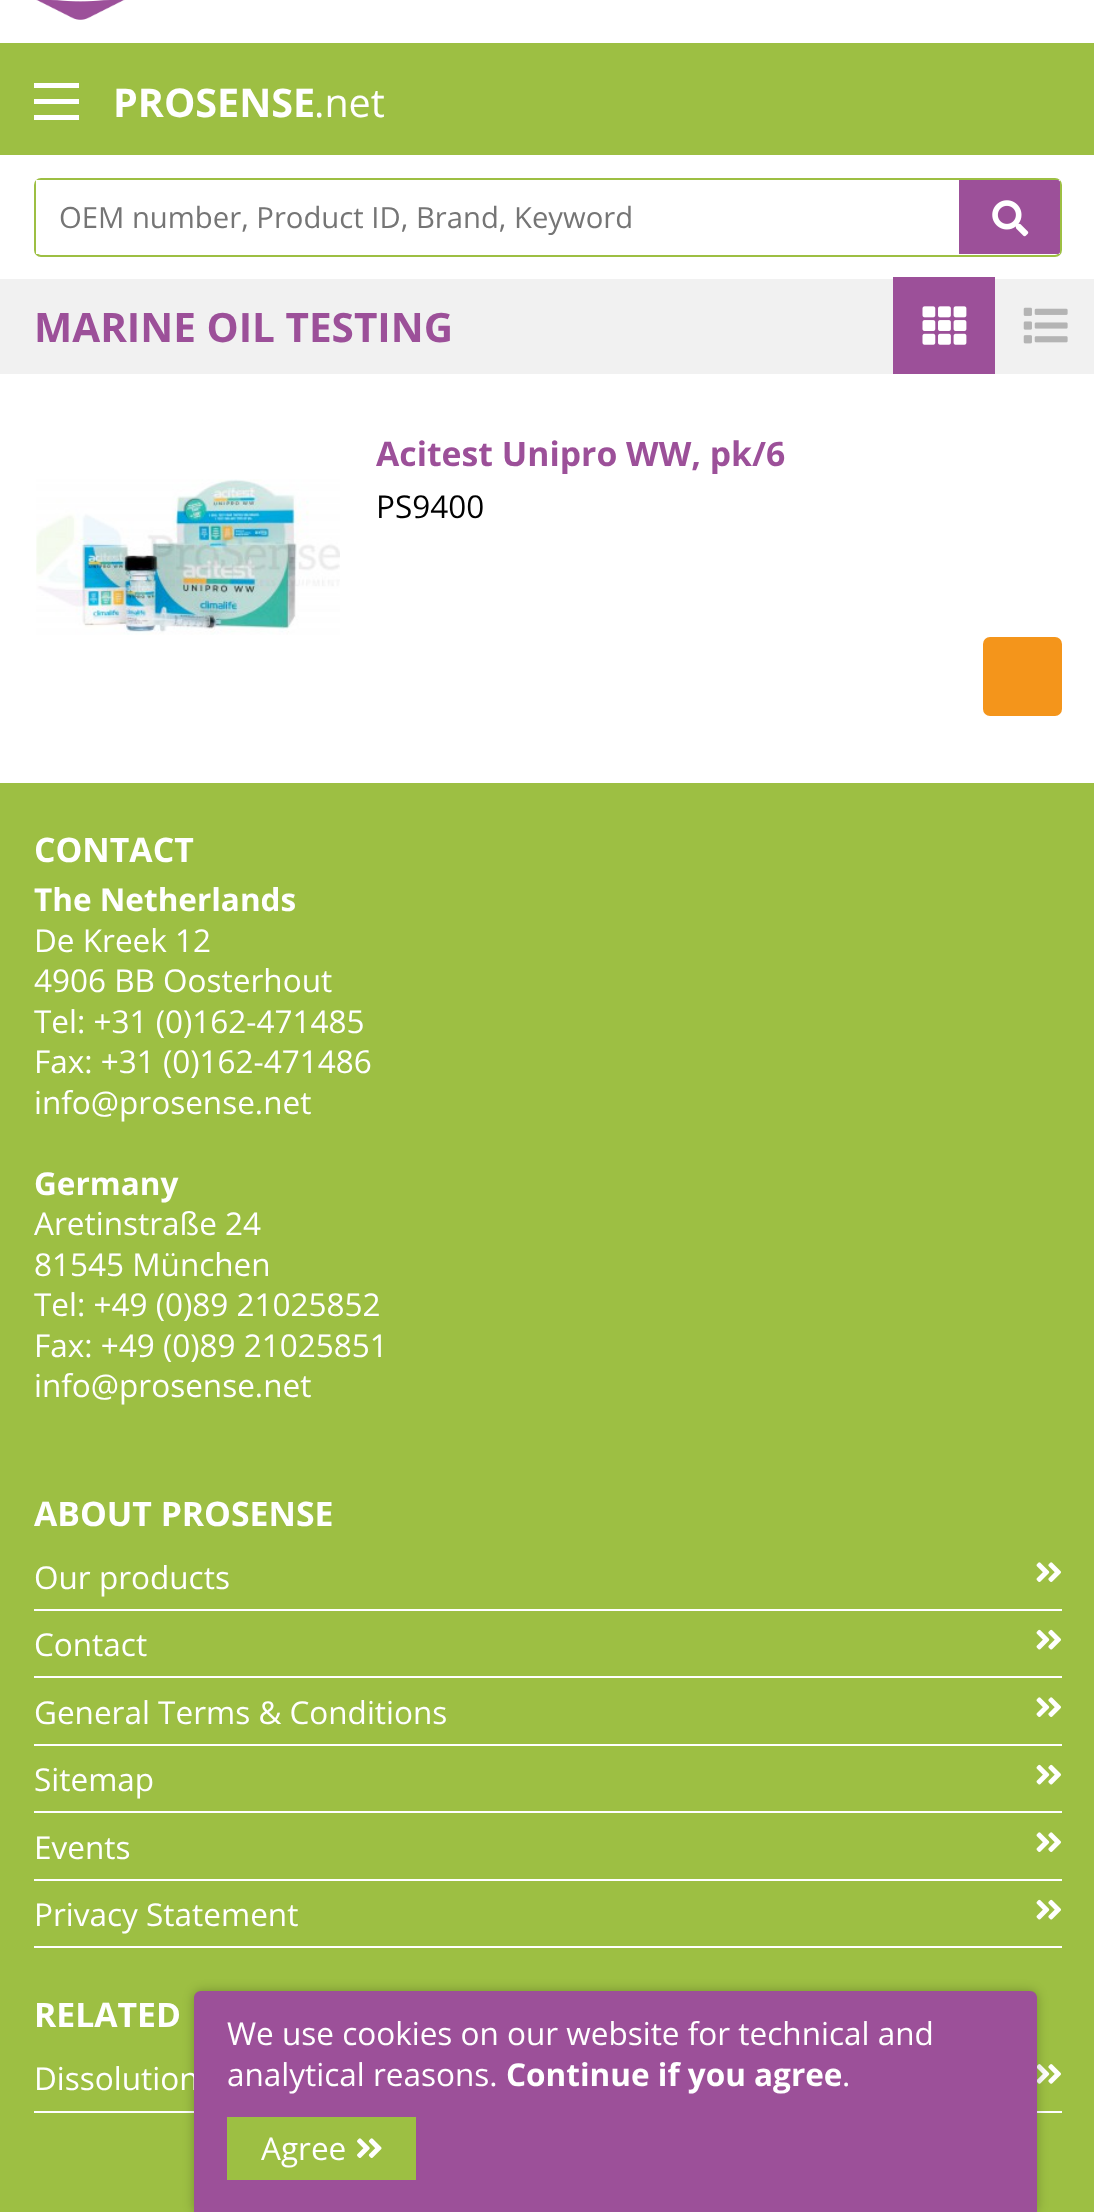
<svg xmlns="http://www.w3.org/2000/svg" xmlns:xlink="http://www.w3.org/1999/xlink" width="1094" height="2212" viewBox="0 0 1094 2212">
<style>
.cls-1{font:bold 39.5px Open Sans;fill:#ffffff}
.cls-2{font:39.5px Open Sans;fill:#ffffff}
.cls-3{font:29.25px Open Sans;fill:#757575}
.cls-4{font:bold 40.5px Open Sans;fill:#9c5099}
.cls-5{font:bold 33.75px Open Sans;fill:#9c5099}
.cls-6{font:31.5px Open Sans;fill:#000000}
.cls-7{font:bold 33.75px Open Sans;fill:#ffffff}
.cls-8{font:bold 31.5px Open Sans;fill:#ffffff}
.cls-9{font:31.5px Open Sans;fill:#ffffff}
</style>
<rect width="100%" height="100%" fill="#ffffff"/>
<rect fill="#9dbf43" x="0" y="43" width="1094" height="112"/>
<rect fill="#ffffff" x="34" y="99" width="45" height="5"/>
<rect fill="#ffffff" x="34" y="83" width="45" height="5"/>
<rect fill="#ffffff" x="34" y="115" width="45" height="5"/>
<image xlink:href="image0.png" x="36" y="0" width="89" height="20"/>
<rect fill="none" stroke="#9dbf43" stroke-width="2" x="35" y="179" width="1026" height="77" rx="6"/>
<rect fill="#ffffff" x="36" y="180" width="1024" height="74"/>
<path fill="#9c5099" d="M959 180H1058C1059 180 1060 181 1060 182V252C1060 253 1059 254 1058 254H959Z"/>
<image xlink:href="image1.png" x="992" y="200" width="37" height="37"/>
<rect fill="#f1f1f1" x="0" y="279" width="1094" height="95"/>
<rect fill="#9c5099" x="893" y="277" width="102" height="97"/>
<image xlink:href="image2.png" x="922" y="306" width="45" height="39"/>
<image xlink:href="image3.png" x="1023" y="307" width="45" height="37"/>
<image xlink:href="image4.png" x="36" y="479" width="304" height="156"/>
<rect fill="#f4951b" x="983" y="637" width="79" height="79" rx="7"/>
<rect fill="#9dbf43" x="0" y="783" width="1094" height="1429"/>
<rect fill="#ffffff" x="34" y="1609" width="1028" height="2"/>
<image xlink:href="image5.png" x="1036" y="1562" width="25" height="20"/>
<rect fill="#ffffff" x="34" y="1676" width="1028" height="2"/>
<image xlink:href="image6.png" x="1036" y="1629" width="25" height="21"/>
<rect fill="#ffffff" x="34" y="1744" width="1028" height="2"/>
<image xlink:href="image5.png" x="1036" y="1697" width="25" height="20"/>
<rect fill="#ffffff" x="34" y="1811" width="1028" height="2"/>
<image xlink:href="image6.png" x="1036" y="1764" width="25" height="21"/>
<rect fill="#ffffff" x="34" y="1879" width="1028" height="2"/>
<image xlink:href="image5.png" x="1036" y="1832" width="25" height="20"/>
<rect fill="#ffffff" x="34" y="1946" width="1028" height="2"/>
<image xlink:href="image6.png" x="1036" y="1899" width="25" height="21"/>
<rect fill="#ffffff" x="34" y="2111" width="1028" height="2"/>
<image xlink:href="image7.png" x="1037" y="2064" width="24" height="20"/>
<rect fill="#000000" fill-opacity="0.25" filter="blur(5.5px)" x="194" y="1991" width="843" height="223" rx="7"/>
<text class="cls-1" x="113" y="117">PROSENSE</text>
<text class="cls-2" x="314" y="117">.net</text>
<text class="cls-3" x="59" y="228">OEM number, Product ID, Brand, Keyword</text>
<text class="cls-4" x="34" y="342">MARINE OIL TESTING</text>
<text class="cls-5" x="376" y="466">Acitest Unipro WW, pk/6</text>
<text class="cls-6" x="376" y="518">PS9400</text>
<text class="cls-7" x="34" y="862">CONTACT</text>
<text class="cls-8" x="34" y="911">The Netherlands</text>
<text class="cls-9"><tspan x="34" y="952">De Kreek 12</tspan><tspan x="34" y="992">4906 BB Oosterhout</tspan><tspan x="34" y="1033">Tel: +31 (0)162-471485</tspan><tspan x="34" y="1073">Fax: +31 (0)162-471486</tspan><tspan x="34" y="1114">info@prosense.net</tspan></text>
<text class="cls-8" x="34" y="1195">Germany</text>
<text class="cls-9"><tspan x="34" y="1235">Aretinstraße 24</tspan><tspan x="34" y="1276">81545 München</tspan><tspan x="34" y="1316">Tel: +49 (0)89 21025852</tspan><tspan x="34" y="1357">Fax: +49 (0)89 21025851</tspan><tspan x="34" y="1397">info@prosense.net</tspan></text>
<text class="cls-7" x="34" y="1526">ABOUT PROSENSE</text>
<text class="cls-9" x="34" y="1589">Our products</text>
<text class="cls-9" x="34" y="1656">Contact</text>
<text class="cls-9" x="34" y="1724">General Terms &amp; Conditions</text>
<text class="cls-9" x="34" y="1791">Sitemap</text>
<text class="cls-9" x="34" y="1859">Events</text>
<text class="cls-9" x="34" y="1926">Privacy Statement</text>
<text class="cls-7" x="34" y="2027">RELATED</text>
<text class="cls-9" x="34" y="2090">Dissolution</text>
<path fill="#9c5099" d="M201 1991H1030C1034 1991 1037 1994 1037 1998V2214H194V1998C194 1994 197 1991 201 1991Z"/>
<text class="cls-9"><tspan x="227" y="2045">We use cookies on our website for technical and</tspan><tspan x="227" y="2086">analytical reasons.</tspan></text>
<text class="cls-8" x="506" y="2086">Continue if you agree</text>
<text class="cls-9" x="842" y="2086">.</text>
<rect fill="#9dbf43" x="227" y="2117" width="189" height="63"/>
<text class="cls-9" x="261" y="2160">Agree</text>
<image xlink:href="image8.png" x="357" y="2138" width="25" height="20"/>
</svg>
